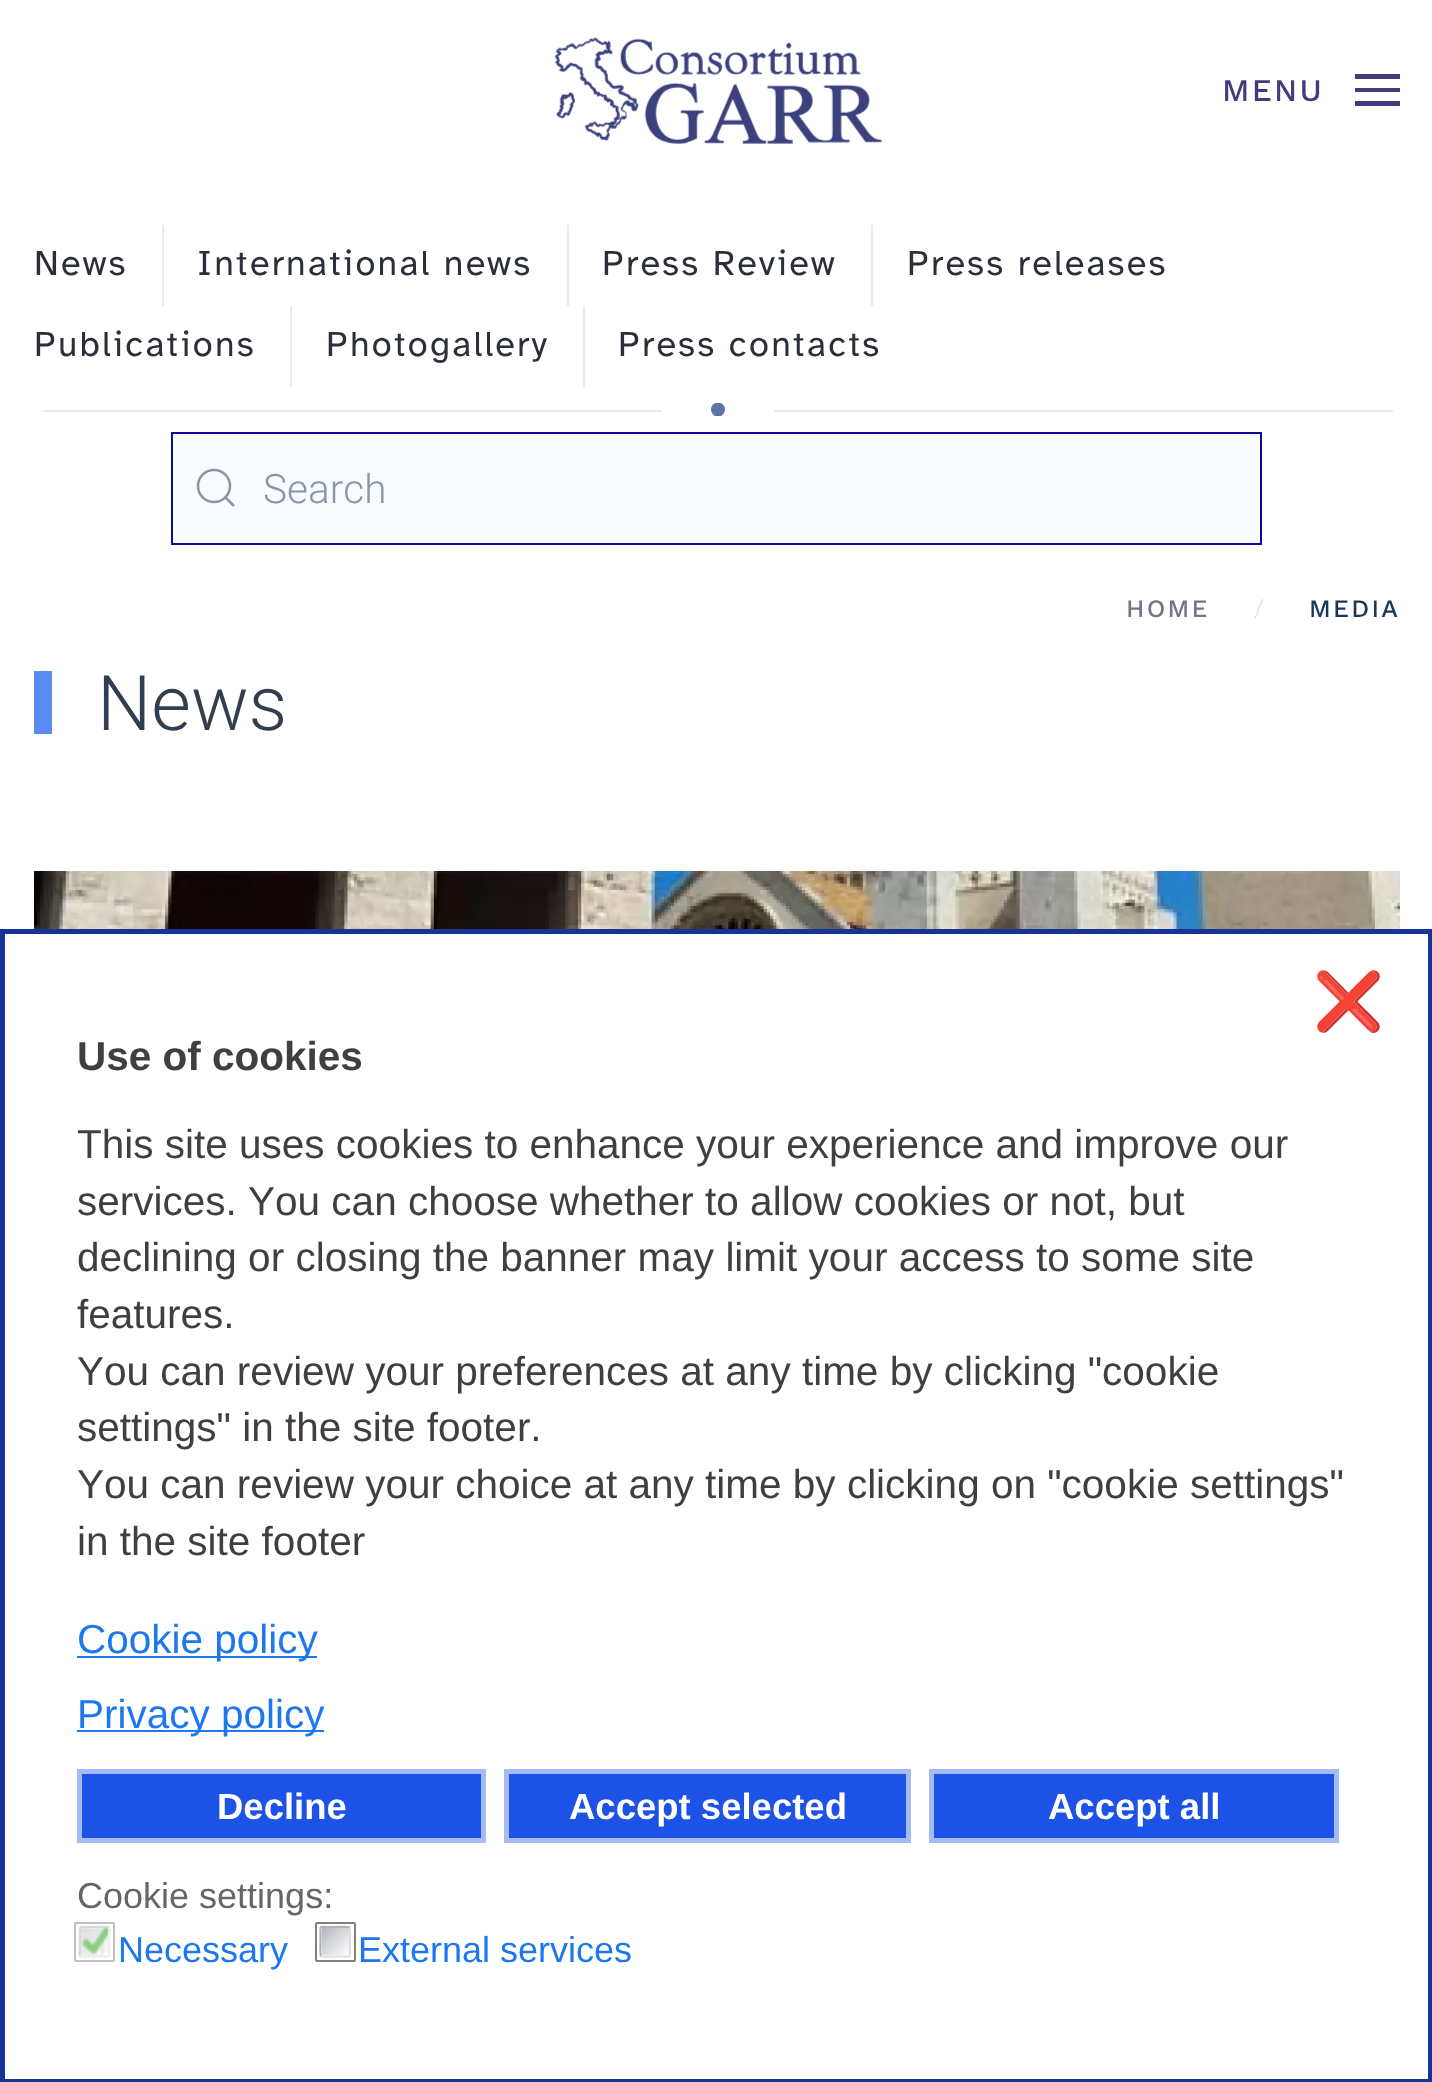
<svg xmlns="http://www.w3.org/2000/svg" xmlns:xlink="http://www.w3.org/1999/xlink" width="1432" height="2082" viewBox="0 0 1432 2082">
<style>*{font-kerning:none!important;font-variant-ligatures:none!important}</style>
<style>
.cls-1{font:500 31.5px Work Sans;letter-spacing:2.25px;fill:#423c7e}
.cls-2{font:36px Atkinson Hyperlegible;letter-spacing:2.25px;fill:#2b2f37}
.cls-3{font:300 40.5px Roboto;fill:#8a94a8}
.cls-4{font:500 25px Work Sans;letter-spacing:2.25px;fill:#6e7788}
.cls-5{font:300 25px Roboto;fill:#dcdcdc}
.cls-6{font:500 25px Work Sans;letter-spacing:2.25px;fill:#19365d}
.cls-7{font:300 76.5px Roboto;fill:#313e4f}
.cls-8{font:57px Noto Color Emoji;fill:#ff1a1a}
.cls-9{font:bold 40.5px Liberation Sans;fill:#423e3e}
.cls-10{font:40.5px Liberation Sans;fill:#423e3e}
.cls-11{font:40.5px Liberation Sans;fill:#1d77ef}
.cls-12{font:bold 36.5px Liberation Sans;fill:#ffffff}
.cls-13{font:36px Liberation Sans;fill:#686565}
.cls-14{font:36px Liberation Sans;fill:#1d77ef}
</style>
<defs>
<clipPath id="clip1"><rect x="711" y="403" width="14" height="13"/></clipPath>
<linearGradient id="g1" gradientUnits="userSpaceOnUse" x1="322" y1="1928" x2="349" y2="1955"><stop offset="0" stop-color="#b1b6be"/><stop offset="1" stop-color="#ffffff"/></linearGradient>
</defs>
<rect width="100%" height="100%" fill="#ffffff"/>
<image xlink:href="image0.png" x="554" y="37" width="328" height="107"/>
<rect fill="#423c7e" x="1355" y="74" width="45" height="5"/>
<rect fill="#423c7e" x="1355" y="88" width="45" height="4"/>
<rect fill="#423c7e" x="1355" y="101" width="45" height="5"/>
<rect fill="#e9e9e9" x="162" y="225" width="2" height="81"/>
<rect fill="#e9e9e9" x="567" y="225" width="2" height="81"/>
<rect fill="#e9e9e9" x="871" y="225" width="2" height="81"/>
<rect fill="#e9e9e9" x="290" y="306" width="2" height="81"/>
<rect fill="#e9e9e9" x="583" y="306" width="2" height="81"/>
<g clip-path="url(#clip1)">
<circle fill="#5b75a9" cx="718" cy="409.5" r="7"/>
</g>
<rect fill="#e9e9e9" x="43" y="410" width="619" height="2"/>
<rect fill="#e9e9e9" x="774" y="410" width="619" height="2"/>
<rect fill="#f8fbff" stroke="#0e0b9b" stroke-width="2" x="172" y="433" width="1089" height="111"/>
<circle fill="none" stroke="#8a94a8" stroke-width="2.5" cx="214" cy="486" r="16"/>
<path fill="none" stroke="#8a94a8" stroke-width="2.5" d="M225 497L234 506Z"/>
<rect fill="#588cf3" x="34" y="671" width="18" height="63"/>
<image xlink:href="image1.png" x="34" y="871" width="1366" height="58"/>
<rect fill="none" stroke="#163397" stroke-width="5" x="2.5" y="931.5" width="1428" height="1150"/>
<rect fill="#1d77ef" x="77" y="1656" width="240" height="2"/>
<rect fill="#1d77ef" x="77" y="1730" width="247" height="2"/>
<rect fill="#1c52e6" stroke="#a6baf5" stroke-width="5" x="79.5" y="1771.5" width="404" height="69"/>
<rect fill="#1c52e6" stroke="#a6baf5" stroke-width="5" x="506.5" y="1771.5" width="402" height="69"/>
<rect fill="#1c52e6" stroke="#a6baf5" stroke-width="5" x="931.5" y="1771.5" width="405" height="69"/>
<rect fill="none" stroke="#c0c0c0" stroke-width="2" x="75" y="1923" width="39" height="38" rx="1"/>
<image xlink:href="image2.png" x="78" y="1925" width="33" height="33"/>
<path fill="none" stroke="#eeeeef" stroke-width="2.2" d="M109 1927.5C109.5 1928.5 109 1940 109 1942V1951C109 1957.5 110 1956.5 103.5 1956.5H94.5C92.5 1956.5 81 1957 80 1956"/>
<path fill="none" stroke="#d9d9d9" stroke-width="2.2" d="M80 1956C79.5 1955 80 1943.5 80 1942V1933C80 1926 79 1927 85.5 1927H94.5C96.5 1927 108 1926.5 109 1927.5"/>
<rect fill="none" stroke="#808080" stroke-width="2" x="316" y="1923" width="39" height="38" rx="1"/>
<rect fill="url(#g1)" x="322" y="1928" width="27" height="27"/>
<path fill="none" stroke="#dcddde" stroke-width="2.2" d="M349.5 1927.5C350.5 1928.5 350 1940 350 1942V1951C350 1957.5 351 1956.5 344 1956.5H335C333.5 1956.5 322 1957 321 1956"/>
<path fill="none" stroke="#b3b3b3" stroke-width="2.2" d="M321 1956C320 1955 320.5 1943.5 320.5 1942V1933C320.5 1926 319.5 1927 326 1927H335C337 1927 348.5 1926.5 349.5 1927.5"/>
<text class="cls-1" x="1222" y="101">MENU</text>
<text class="cls-2" x="34" y="275">News</text>
<text class="cls-2" x="197" y="275">International news</text>
<text class="cls-2" x="602" y="275">Press Review</text>
<text class="cls-2" x="907" y="275">Press releases</text>
<text class="cls-2" x="34" y="356">Publications</text>
<text class="cls-2" x="326" y="356">Photogallery</text>
<text class="cls-2" x="618" y="356">Press contacts</text>
<text class="cls-3" x="263" y="503">Search</text>
<text class="cls-4" x="1126" y="617">HOME</text>
<text class="cls-5" x="1254" y="617">/</text>
<text class="cls-6" x="1309" y="617">MEDIA</text>
<text class="cls-7" x="97" y="730">News</text>
<text class="cls-8" x="1313" y="1021">❌</text>
<text class="cls-9" x="77" y="1070">Use of cookies</text>
<text class="cls-10"><tspan x="77" y="1158">This site uses cookies to enhance your experience and improve our</tspan><tspan x="77" y="1215">services. You can choose whether to allow cookies or not, but</tspan><tspan x="77" y="1271">declining or closing the banner may limit your access to some site</tspan><tspan x="77" y="1328">features.</tspan><tspan x="77" y="1385">You can review your preferences at any time by clicking "cookie</tspan><tspan x="77" y="1441">settings" in the site footer.</tspan><tspan x="77" y="1498">You can review your choice at any time by clicking on "cookie settings"</tspan><tspan x="77" y="1555">in the site footer</tspan></text>
<text class="cls-11"><tspan x="77" y="1653">Cookie policy</tspan><tspan x="77" y="1728">Privacy policy</tspan></text>
<text class="cls-12" x="217" y="1819">Decline</text>
<text class="cls-12" x="569" y="1819">Accept selected</text>
<text class="cls-12" x="1048" y="1819">Accept all</text>
<text class="cls-13" x="77" y="1908">Cookie settings:</text>
<text class="cls-14" x="118" y="1962">Necessary</text>
<text class="cls-14" x="358" y="1962">External services</text>
</svg>
